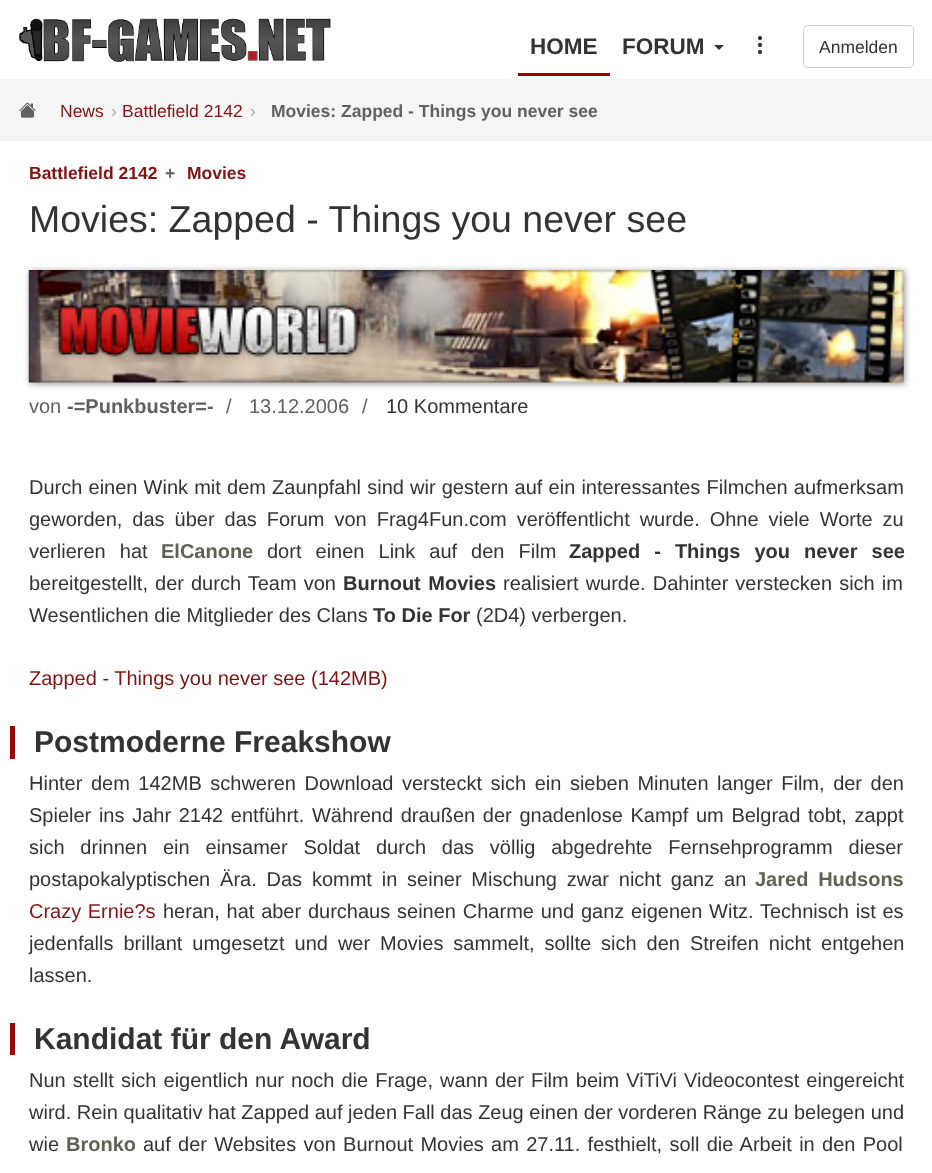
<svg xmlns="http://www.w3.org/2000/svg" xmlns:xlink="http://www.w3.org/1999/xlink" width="932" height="1173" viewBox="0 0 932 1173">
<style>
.cls-1{font:bold 22.5px Liberation Sans;fill:#333333}
.cls-2{font:17.5px Liberation Sans;fill:#333333}
.cls-3{font:17.5px Liberation Sans;fill:#831313}
.cls-4{font:17.5px Liberation Sans;fill:#aaaaaa}
.cls-5{font:bold 17.5px Liberation Sans;fill:#616161}
.cls-6{font:bold 17.5px Liberation Sans;fill:#831313}
.cls-7{font:37.5px Liberation Sans;fill:#333333}
.cls-8{font:20px Liberation Sans;fill:#616161}
.cls-9{font:bold 20px Liberation Sans;fill:#616161}
.cls-10{font:20px Liberation Sans;fill:#333333}
.cls-11{font:bold 20px Liberation Sans;fill:#5e6251}
.cls-12{font:bold 20px Liberation Sans;fill:#333333}
.cls-13{font:20px Liberation Sans;fill:#831313}
.cls-14{font:bold 30px Liberation Sans;fill:#333333}
</style>
<rect width="100%" height="100%" fill="#ffffff"/>
<image xlink:href="image0.png" x="18" y="18" width="313" height="44"/>
<rect fill="#960002" x="518" y="73" width="92" height="3"/>
<path fill="#333333" d="M714 45H724L719 50Z"/>
<image xlink:href="image1.png" x="757" y="35" width="6" height="20"/>
<rect fill="none" stroke="#cccccc" x="803.5" y="25.5" width="110" height="42" rx="4.5"/>
<rect fill="#f5f5f5" x="0" y="79" width="932" height="62"/>
<image xlink:href="image2.png" x="19" y="102" width="17" height="16"/>
<rect fill="#000000" fill-opacity="0.4" filter="blur(3px)" x="30" y="271" width="875" height="113"/>
<image xlink:href="image3.png" x="28" y="270" width="876" height="113"/>
<rect fill="#990000" x="10" y="726" width="5" height="33"/>
<rect fill="#990000" x="10" y="1023" width="5" height="32"/>
<text class="cls-1" x="530" y="54">HOME</text>
<text class="cls-1" x="622" y="54">FORUM</text>
<text class="cls-2" x="819" y="53">Anmelden</text>
<text class="cls-3" x="60" y="117">News</text>
<text class="cls-4" x="111" y="117">›</text>
<text class="cls-3" x="122" y="117">Battlefield 2142</text>
<text class="cls-4" x="250" y="117">›</text>
<text class="cls-5" x="271" y="117">Movies: Zapped - Things you never see</text>
<text class="cls-6" x="29" y="179">Battlefield 2142</text>
<text class="cls-5" x="165" y="179">+</text>
<text class="cls-6" x="187" y="179">Movies</text>
<text class="cls-7" x="29" y="232">Movies: Zapped - Things you never see</text>
<text class="cls-8" x="29" y="413">von</text>
<text class="cls-9" x="67" y="413">-=Punkbuster=-</text>
<text class="cls-8" x="226" y="413">/</text>
<text class="cls-8" x="249" y="413">13.12.2006</text>
<text class="cls-8" x="362" y="413">/</text>
<text class="cls-10" x="386" y="413">10 Kommentare</text>
<text class="cls-10"><tspan x="29" y="494" word-spacing="0.6">Durch einen Wink mit dem Zaunpfahl sind wir gestern auf ein interessantes Filmchen aufmerksam</tspan><tspan x="29" y="526" word-spacing="4.4">geworden, das über das Forum von Frag4Fun.com veröffentlicht wurde. Ohne viele Worte zu</tspan><tspan x="29" y="558" word-spacing="8.5">verlieren hat</tspan></text>
<text class="cls-11" x="161" y="558">ElCanone</text>
<text class="cls-10" x="267" y="558" word-spacing="8.5">dort einen Link auf den Film</text>
<text class="cls-12" x="569" y="558" word-spacing="8.5">Zapped - Things you never see</text>
<text class="cls-10" x="29" y="590" word-spacing="1.5">bereitgestellt, der durch Team von</text>
<text class="cls-12" x="343" y="590" word-spacing="2">Burnout Movies</text>
<text class="cls-10" x="503" y="590" word-spacing="1.5">realisiert wurde. Dahinter verstecken sich im</text>
<text class="cls-10" x="29" y="622">Wesentlichen die Mitglieder des Clans</text>
<text class="cls-12" x="373" y="622">To Die For</text>
<text class="cls-10" x="476" y="622">(2D4) verbergen.</text>
<text class="cls-13" x="29" y="685">Zapped - Things you never see (142MB)</text>
<text class="cls-14" x="34" y="752">Postmoderne Freakshow</text>
<text class="cls-10"><tspan x="29" y="790" word-spacing="3">Hinter dem 142MB schweren Download versteckt sich ein sieben Minuten langer Film, der den</tspan><tspan x="29" y="822" word-spacing="2.1">Spieler ins Jahr 2142 entführt. Während draußen der gnadenlose Kampf um Belgrad tobt, zappt</tspan><tspan x="29" y="854" word-spacing="10.25">sich drinnen ein einsamer Soldat durch das völlig abgedrehte Fernsehprogramm dieser</tspan><tspan x="29" y="886" word-spacing="4.25">postapokalyptischen Ära. Das kommt in seiner Mischung zwar nicht ganz an</tspan></text>
<text class="cls-11" x="755" y="886" word-spacing="4.25">Jared Hudsons</text>
<text class="cls-13" x="29" y="918" word-spacing="1">Crazy Ernie?s</text>
<text class="cls-10" x="163" y="918" word-spacing="1.25">heran, hat aber durchaus seinen Charme und ganz eigenen Witz. Technisch ist es</text>
<text class="cls-10"><tspan x="29" y="950" word-spacing="4.4">jedenfalls brillant umgesetzt und wer Movies sammelt, sollte sich den Streifen nicht entgehen</tspan><tspan x="29" y="982">lassen.</tspan></text>
<text class="cls-14" x="34" y="1049">Kandidat für den Award</text>
<text class="cls-10"><tspan x="29" y="1087" word-spacing="1.5">Nun stellt sich eigentlich nur noch die Frage, wann der Film beim ViTiVi Videocontest eingereicht</tspan><tspan x="29" y="1119">wird. Rein qualitativ hat Zapped auf jeden Fall das Zeug einen der vorderen Ränge zu belegen und</tspan><tspan x="29" y="1151">wie</tspan></text>
<text class="cls-11" x="66" y="1151">Bronko</text>
<text class="cls-10" x="143" y="1151" word-spacing="1.75">auf der Websites von Burnout Movies am 27.11. festhielt, soll die Arbeit in den Pool</text>
</svg>
